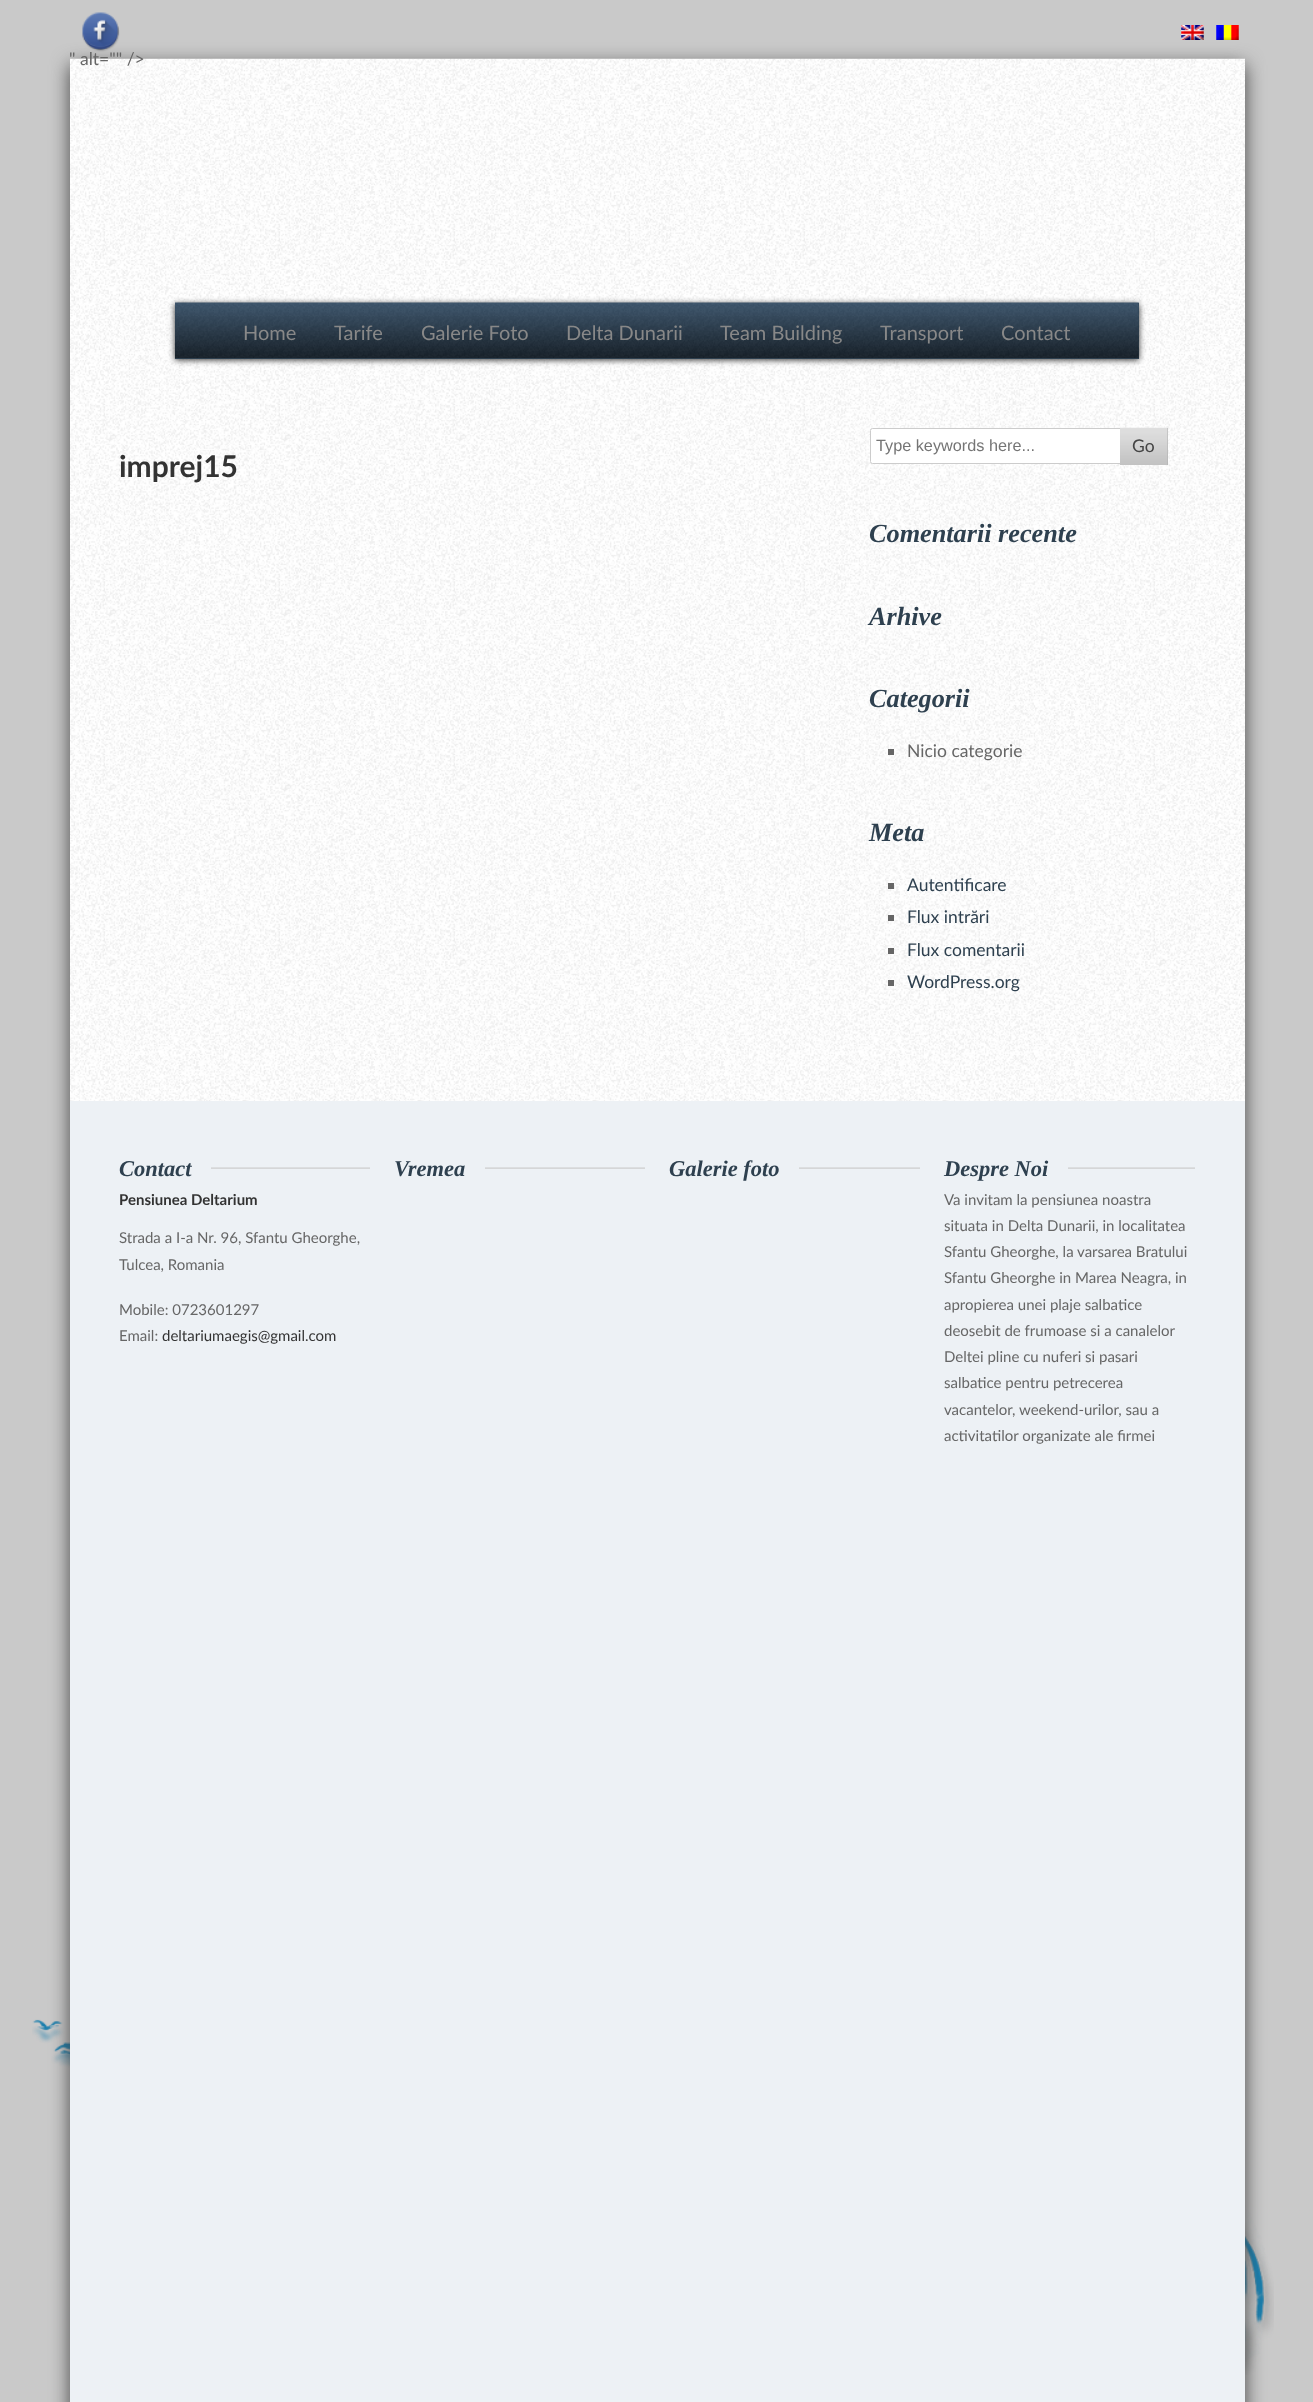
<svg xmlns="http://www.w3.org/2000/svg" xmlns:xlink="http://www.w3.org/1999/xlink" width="1313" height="2402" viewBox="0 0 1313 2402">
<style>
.cls-1{font:17.5px Lato;fill:#666666}
.cls-2{font:20px Lato;fill:#888888}
.cls-3{font:bold 30px Lato;fill:#333333}
.cls-4{font:16.25px Liberation Sans;fill:#757575}
.cls-5{font:17.5px Lato;fill:#444444}
.cls-6{font:italic bold 26.25px Liberation Serif;fill:#2e404f}
.cls-7{font:17.5px Lato;fill:#2e404f}
.cls-8{font:italic bold 22.5px Liberation Serif;fill:#2e404f}
.cls-9{font:bold 15px Lato;fill:#333333}
.cls-10{font:15px Lato;fill:#666666}
.cls-11{font:15px Lato;fill:#333333}
</style>
<rect width="100%" height="100%" fill="#c9c9c9"/>
<image xlink:href="image0.png" x="32" y="2019" width="1242" height="356"/>
<image xlink:href="image1.png" x="82" y="12" width="38" height="40"/>
<rect fill="#444444" filter="blur(9.5px)" x="70" y="65" width="1175" height="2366"/>
<image xlink:href="image2.png" x="1181" y="25" width="23" height="15"/>
<image xlink:href="image3.png" x="1216" y="25" width="23" height="15"/>
<image xlink:href="image4.png" x="70" y="58" width="1175" height="1043"/>
<rect fill="#333333" filter="blur(3px)" x="175" y="304" width="964" height="56"/>
<rect fill="#2e404f" x="175" y="303" width="964" height="56"/>
<image xlink:href="image5.png" x="175" y="302" width="964" height="56"/>
<rect fill="#ffffff" stroke="#cccccc" x="870.5" y="428.5" width="262" height="35" rx="2"/>
<rect fill="#afafaf" x="1167" y="428" width="1" height="37"/>
<image xlink:href="image6.png" x="1120" y="427" width="48" height="38"/>
<rect fill="#666666" x="888" y="749" width="6" height="6"/>
<rect fill="#666666" x="888" y="883" width="6" height="6"/>
<rect fill="#666666" x="888" y="915" width="6" height="6"/>
<rect fill="#666666" x="888" y="948" width="6" height="6"/>
<rect fill="#666666" x="888" y="980" width="6" height="6"/>
<rect fill="#edf1f5" x="70" y="1101" width="1175" height="1301"/>
<image xlink:href="image7.png" x="211" y="1167" width="159" height="2"/>
<image xlink:href="image8.png" x="485" y="1167" width="160" height="2"/>
<image xlink:href="image9.png" x="799" y="1167" width="121" height="2"/>
<image xlink:href="image10.png" x="1068" y="1167" width="127" height="2"/>
<text class="cls-1" x="69" y="65">" alt="" /&gt;</text>
<text class="cls-2" x="243" y="340">Home</text>
<text class="cls-2" x="334" y="340">Tarife</text>
<text class="cls-2" x="421" y="340">Galerie Foto</text>
<text class="cls-2" x="566" y="340">Delta Dunarii</text>
<text class="cls-2" x="720" y="340">Team Building</text>
<text class="cls-2" x="880" y="340">Transport</text>
<text class="cls-2" x="1001" y="340">Contact</text>
<text class="cls-3" x="119" y="477">imprej15</text>
<text class="cls-4" x="876" y="451">Type keywords here...</text>
<text class="cls-5" x="1132" y="452">Go</text>
<text class="cls-6" x="869" y="542">Comentarii recente</text>
<text class="cls-6" x="869" y="625">Arhive</text>
<text class="cls-6" x="869" y="707">Categorii</text>
<text class="cls-1" x="907" y="757">Nicio categorie</text>
<text class="cls-6" x="869" y="841">Meta</text>
<text class="cls-7"><tspan x="907" y="891">Autentificare</tspan><tspan x="907" y="923">Flux intrări</tspan><tspan x="907" y="956">Flux comentarii</tspan><tspan x="907" y="988">WordPress.org</tspan></text>
<text class="cls-8" x="119" y="1176">Contact</text>
<text class="cls-9" x="119" y="1205">Pensiunea Deltarium</text>
<text class="cls-10"><tspan x="119" y="1243">Strada a I-a Nr. 96, Sfantu Gheorghe,</tspan><tspan x="119" y="1270">Tulcea, Romania</tspan></text>
<text class="cls-10"><tspan x="119" y="1315">Mobile: 0723601297</tspan><tspan x="119" y="1341">Email:</tspan></text>
<text class="cls-11" x="162" y="1341">deltariumaegis@gmail.com</text>
<text class="cls-8" x="394" y="1176">Vremea</text>
<text class="cls-8" x="669" y="1176">Galerie foto</text>
<text class="cls-8" x="944" y="1176">Despre Noi</text>
<text class="cls-10"><tspan x="944" y="1205">Va invitam la pensiunea noastra</tspan><tspan x="944" y="1231">situata in Delta Dunarii, in localitatea</tspan><tspan x="944" y="1257">Sfantu Gheorghe, la varsarea Bratului</tspan><tspan x="944" y="1283">Sfantu Gheorghe in Marea Neagra, in</tspan><tspan x="944" y="1310">apropierea unei plaje salbatice</tspan><tspan x="944" y="1336">deosebit de frumoase si a canalelor</tspan><tspan x="944" y="1362">Deltei pline cu nuferi si pasari</tspan><tspan x="944" y="1388">salbatice pentru petrecerea</tspan><tspan x="944" y="1415">vacantelor, weekend-urilor, sau a</tspan><tspan x="944" y="1441">activitatilor organizate ale firmei</tspan></text>
</svg>
